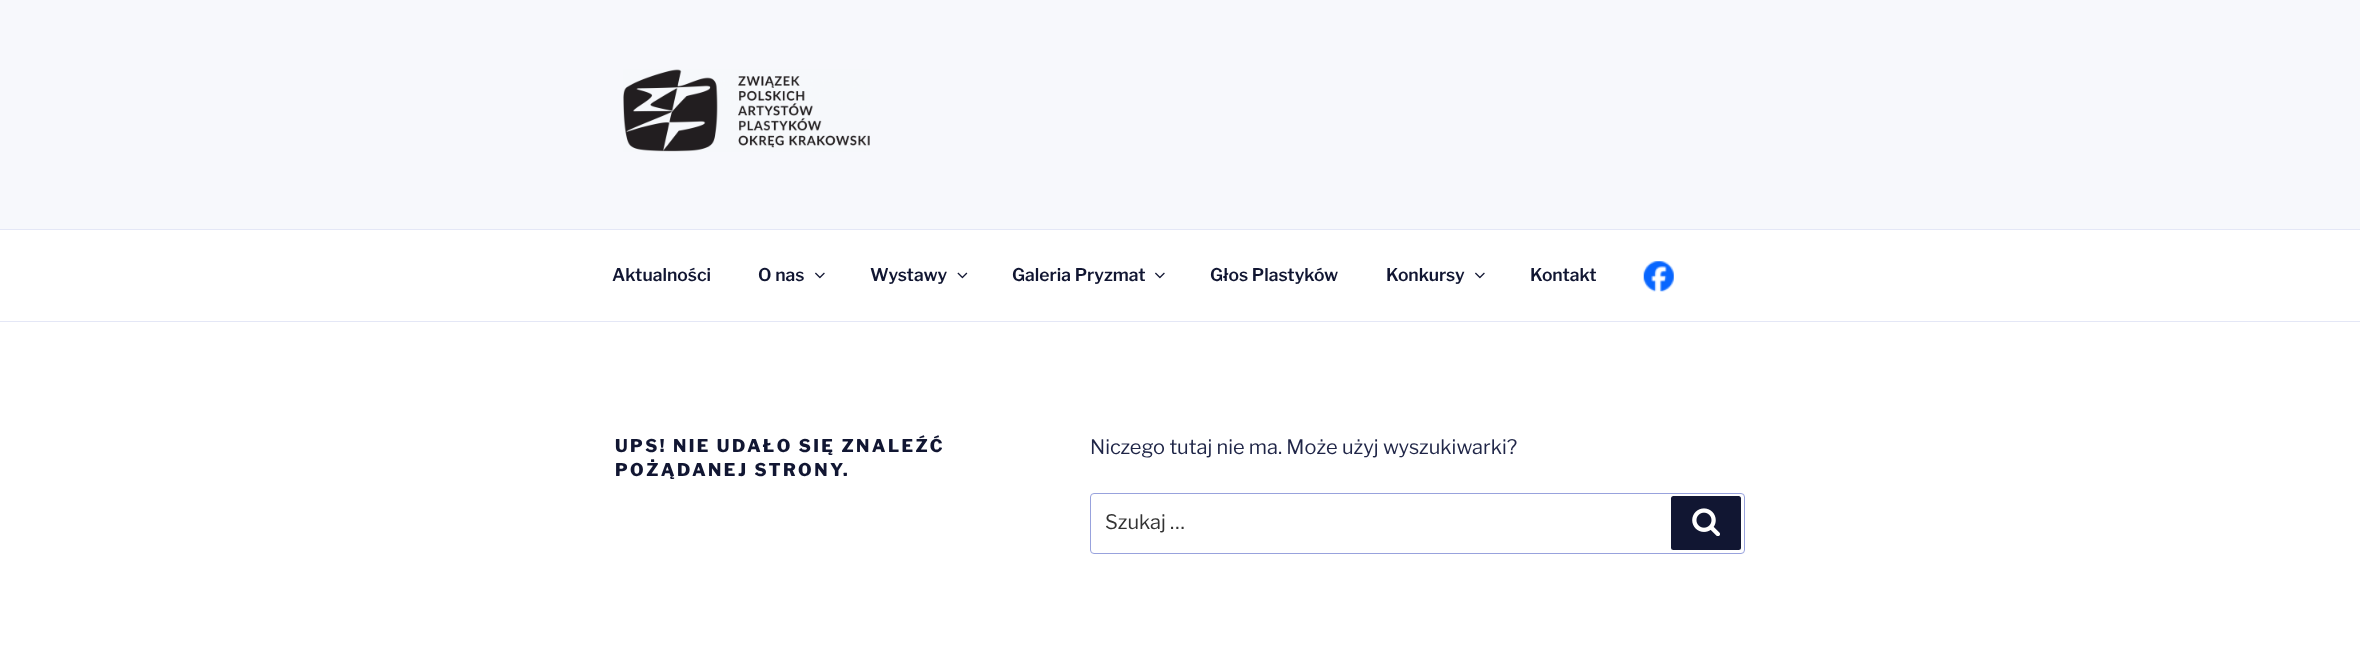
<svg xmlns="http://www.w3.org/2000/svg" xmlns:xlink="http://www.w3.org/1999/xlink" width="2360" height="663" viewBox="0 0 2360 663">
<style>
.cls-1{font:100 17.5px 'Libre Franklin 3';fill:#111632}
.cls-2{font:100 17.5px Libre Franklin;letter-spacing:2.45px;fill:#111632}
.cls-3{font:100 20px 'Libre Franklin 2';fill:#1f2547}
.cls-4{font:100 20px 'Libre Franklin 2';fill:#333333}
</style>
<rect width="100%" height="100%" fill="#ffffff"/>
<rect fill="#f7f8fc" x="0" y="0" width="2360" height="229"/>
<image xlink:href="image0.png" x="623" y="69" width="247" height="83"/>
<rect fill="#e4e7f6" x="0" y="229" width="2360" height="1"/>
<rect fill="#e4e7f6" x="0" y="321" width="2360" height="1"/>
<image xlink:href="image1.png" x="815" y="272" width="10" height="7"/>
<image xlink:href="image2.png" x="957" y="272" width="11" height="7"/>
<image xlink:href="image1.png" x="1155" y="272" width="10" height="7"/>
<image xlink:href="image1.png" x="1475" y="272" width="10" height="7"/>
<image xlink:href="image3.png" x="1643" y="261" width="31" height="31"/>
<rect fill="none" stroke="#98a2dd" x="1090.5" y="493.5" width="654" height="60" rx="3.5"/>
<rect fill="#111632" x="1671" y="496" width="70" height="54" rx="2.5"/>
<image xlink:href="image4.png" x="1692" y="508" width="28" height="28"/>
<text class="cls-1" x="612" y="281">Aktualności</text>
<text class="cls-1" x="758" y="281">O nas</text>
<text class="cls-1" x="870" y="281">Wystawy</text>
<text class="cls-1" x="1012" y="281">Galeria Pryzmat</text>
<text class="cls-1" x="1210" y="281">Głos Plastyków</text>
<text class="cls-1" x="1386" y="281">Konkursy</text>
<text class="cls-1" x="1530" y="281">Kontakt</text>
<text class="cls-2"><tspan x="615" y="452">UPS! NIE UDAŁO SIĘ ZNALEŹĆ</tspan><tspan x="615" y="476">POŻĄDANEJ STRONY.</tspan></text>
<text class="cls-3" x="1090" y="454">Niczego tutaj nie ma. Może użyj wyszukiwarki?</text>
<text class="cls-4" x="1105" y="529">Szukaj …</text>
</svg>
